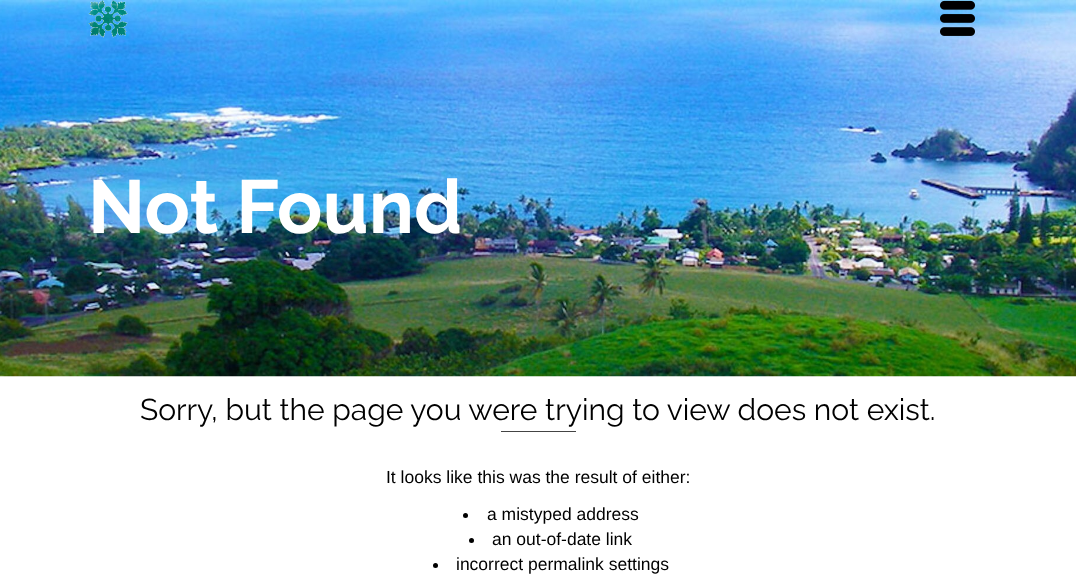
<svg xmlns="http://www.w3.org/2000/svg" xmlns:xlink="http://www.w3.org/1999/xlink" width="1076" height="576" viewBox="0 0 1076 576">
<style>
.cls-1{font:bold 75px Raleway;fill:#ffffff}
.cls-2{font:30px Raleway;fill:#000000}
.cls-3{font:17.5px Liberation Sans;fill:#000000}
</style>
<rect width="100%" height="100%" fill="#ffffff"/>
<image xlink:href="image2.png" x="0" y="0" width="1076" height="377"/>
<image xlink:href="image0.png" x="88" y="0" width="40" height="38"/>
<image xlink:href="image1.png" x="940" y="0" width="35" height="36"/>
<rect fill="#444444" x="501" y="431" width="75" height="1"/>
<circle fill="#000000" cx="465.5" cy="515.5" r="2.5"/>
<circle fill="#000000" cx="471.5" cy="540.5" r="2.5"/>
<circle fill="#000000" cx="435.5" cy="565.5" r="2.5"/>
<text class="cls-1" x="88" y="233">Not Found</text>
<text class="cls-2" x="140" y="420">Sorry, but the page you were trying to view does not exist.</text>
<text class="cls-3" x="386" y="483">It looks like this was the result of either:</text>
<text class="cls-3" x="487" y="520">a mistyped address</text>
<text class="cls-3" x="492" y="545">an out-of-date link</text>
<text class="cls-3" x="456" y="570">incorrect permalink settings</text>
</svg>
